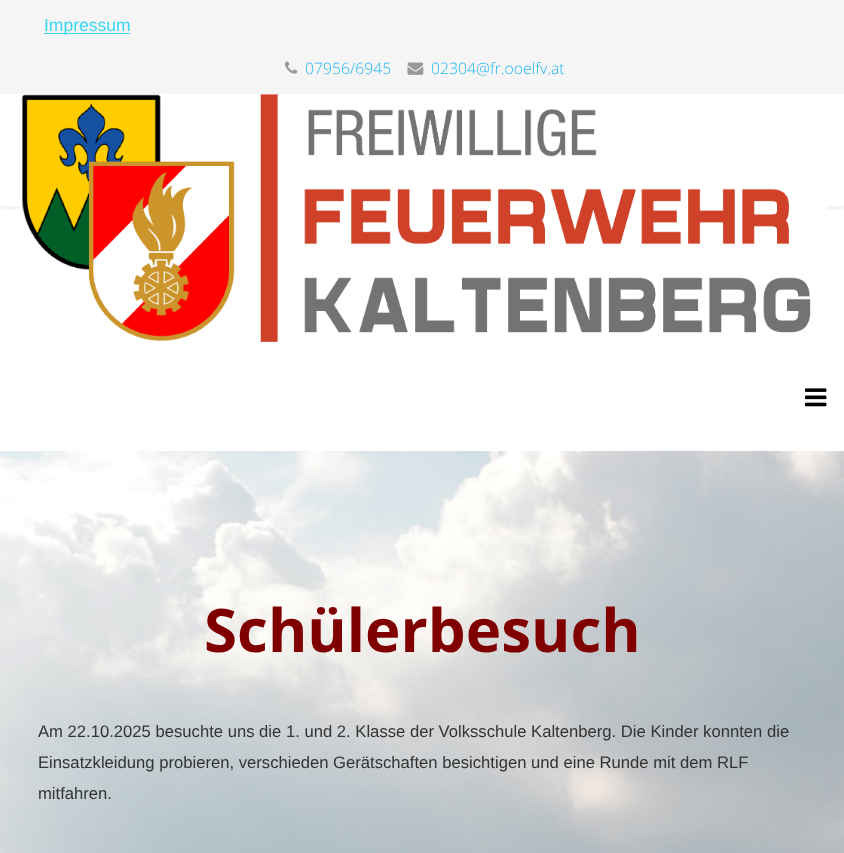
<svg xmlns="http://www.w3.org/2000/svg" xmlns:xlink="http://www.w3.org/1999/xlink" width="844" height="853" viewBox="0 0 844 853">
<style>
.cls-1{font:17.5px Liberation Sans;fill:#37d7f1}
.cls-2{font:300 15.75px Open Sans;fill:#22b8f0}
.cls-3{font:bold 60px Open Sans;fill:#800000}
.cls-4{font:16.65px Liberation Sans;fill:#333333}
</style>
<defs>
<clipPath id="clip1"><rect x="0" y="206" width="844" height="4"/></clipPath>
</defs>
<rect width="100%" height="100%" fill="#ffffff"/>
<rect fill="#f5f5f5" x="0" y="0" width="844" height="94"/>
<rect fill="#37d7f1" x="44" y="33" width="86" height="1"/>
<image xlink:href="image0.png" x="285" y="61" width="13" height="13"/>
<image xlink:href="image1.png" x="407" y="62" width="17" height="13"/>
<g clip-path="url(#clip1)">
<rect fill="#000000" fill-opacity="0.05" filter="blur(2px)" x="0" y="98" width="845" height="112"/>
</g>
<image xlink:href="image2.png" x="19" y="94" width="807" height="248"/>
<image xlink:href="image3.png" x="805" y="388" width="22" height="19"/>
<image xlink:href="image4.png" x="0" y="451" width="844" height="402"/>
<text class="cls-1" x="44" y="31">Impressum</text>
<text class="cls-2" x="305" y="74">07956/6945</text>
<text class="cls-2" x="431" y="74">02304@fr.ooelfv.at</text>
<text class="cls-3" x="204" y="652">Schülerbesuch</text>
<text class="cls-4"><tspan x="38" y="737">Am 22.10.2025 besuchte uns die 1. und 2. Klasse der Volksschule Kaltenberg. Die Kinder konnten die</tspan><tspan x="38" y="768">Einsatzkleidung probieren, verschieden Gerätschaften besichtigen und eine Runde mit dem RLF</tspan><tspan x="38" y="799">mitfahren.</tspan></text>
</svg>
